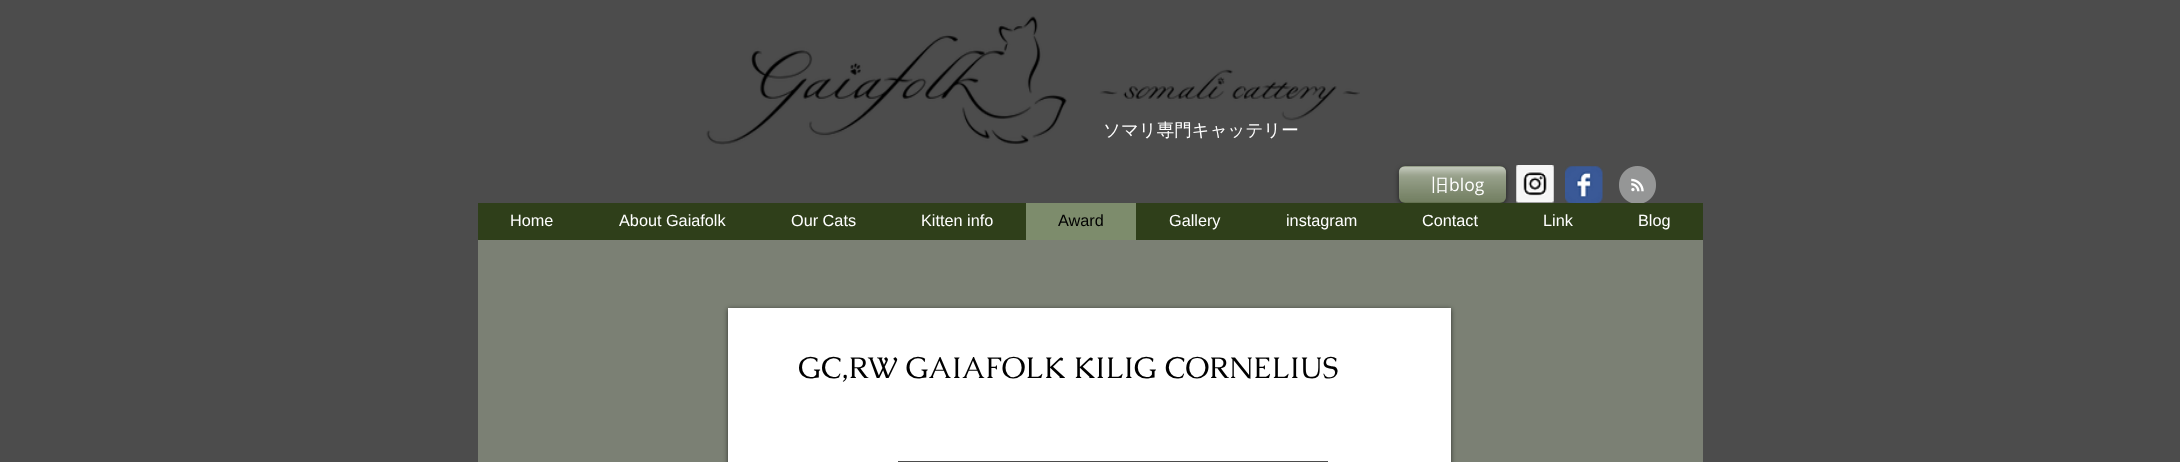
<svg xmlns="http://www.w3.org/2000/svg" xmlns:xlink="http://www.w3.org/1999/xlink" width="2180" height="462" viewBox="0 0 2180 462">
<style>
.cls-1{font:500 17.5px WenQuanYi Zen Hei;fill:#ffffff}
.cls-2{font:17.5px Open Sans;fill:#ffffff}
.cls-3{font:16.25px Liberation Sans;fill:#ffffff}
.cls-4{font:16.25px Liberation Sans;fill:#000000}
.cls-5{font:30px Caudex;fill:#000000}
</style>
<rect width="100%" height="100%" fill="#4c4c4c"/>
<image xlink:href="image0.png" x="706" y="16" width="654" height="129"/>
<rect fill="#000000" fill-opacity="0.6" filter="blur(2.5px)" x="1399" y="168" width="107" height="36" rx="6"/>
<rect fill="#616f4e" x="1399" y="166" width="107" height="37" rx="6"/>
<image xlink:href="image1.png" x="1398" y="166" width="109" height="37"/>
<image xlink:href="image2.png" x="1516" y="165" width="38" height="38"/>
<image xlink:href="image3.png" x="1565" y="166" width="38" height="37"/>
<image xlink:href="image4.png" x="1619" y="166" width="37" height="37"/>
<rect fill="#2f3f1a" x="478" y="203" width="1225" height="37"/>
<rect fill="#7d8c6c" x="1026" y="203" width="110" height="37"/>
<rect fill="#7b8074" x="478" y="240" width="1225" height="222"/>
<rect fill="#000000" fill-opacity="0.6" filter="blur(2.5px)" x="728" y="309" width="723" height="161"/>
<rect fill="#ffffff" x="728" y="308" width="723" height="154"/>
<rect fill="#4c4c4c" x="898" y="461" width="430" height="1"/>
<text class="cls-1" x="1103" y="136">ソマリ専門キャッテリー</text>
<text class="cls-1" x="1431" y="191">旧</text>
<text class="cls-2" x="1449" y="191">blog</text>
<text class="cls-3" x="510" y="226">Home</text>
<text class="cls-3" x="619" y="226">About Gaiafolk</text>
<text class="cls-3" x="791" y="226">Our Cats</text>
<text class="cls-3" x="921" y="226">Kitten info</text>
<text class="cls-4" x="1058" y="226">Award</text>
<text class="cls-3" x="1169" y="226">Gallery</text>
<text class="cls-3" x="1286" y="226">instagram</text>
<text class="cls-3" x="1422" y="226">Contact</text>
<text class="cls-3" x="1543" y="226">Link</text>
<text class="cls-3" x="1638" y="226">Blog</text>
<text class="cls-5" x="798" y="378">GC,RW GAIAFOLK KILIG CORNELIUS</text>
</svg>
